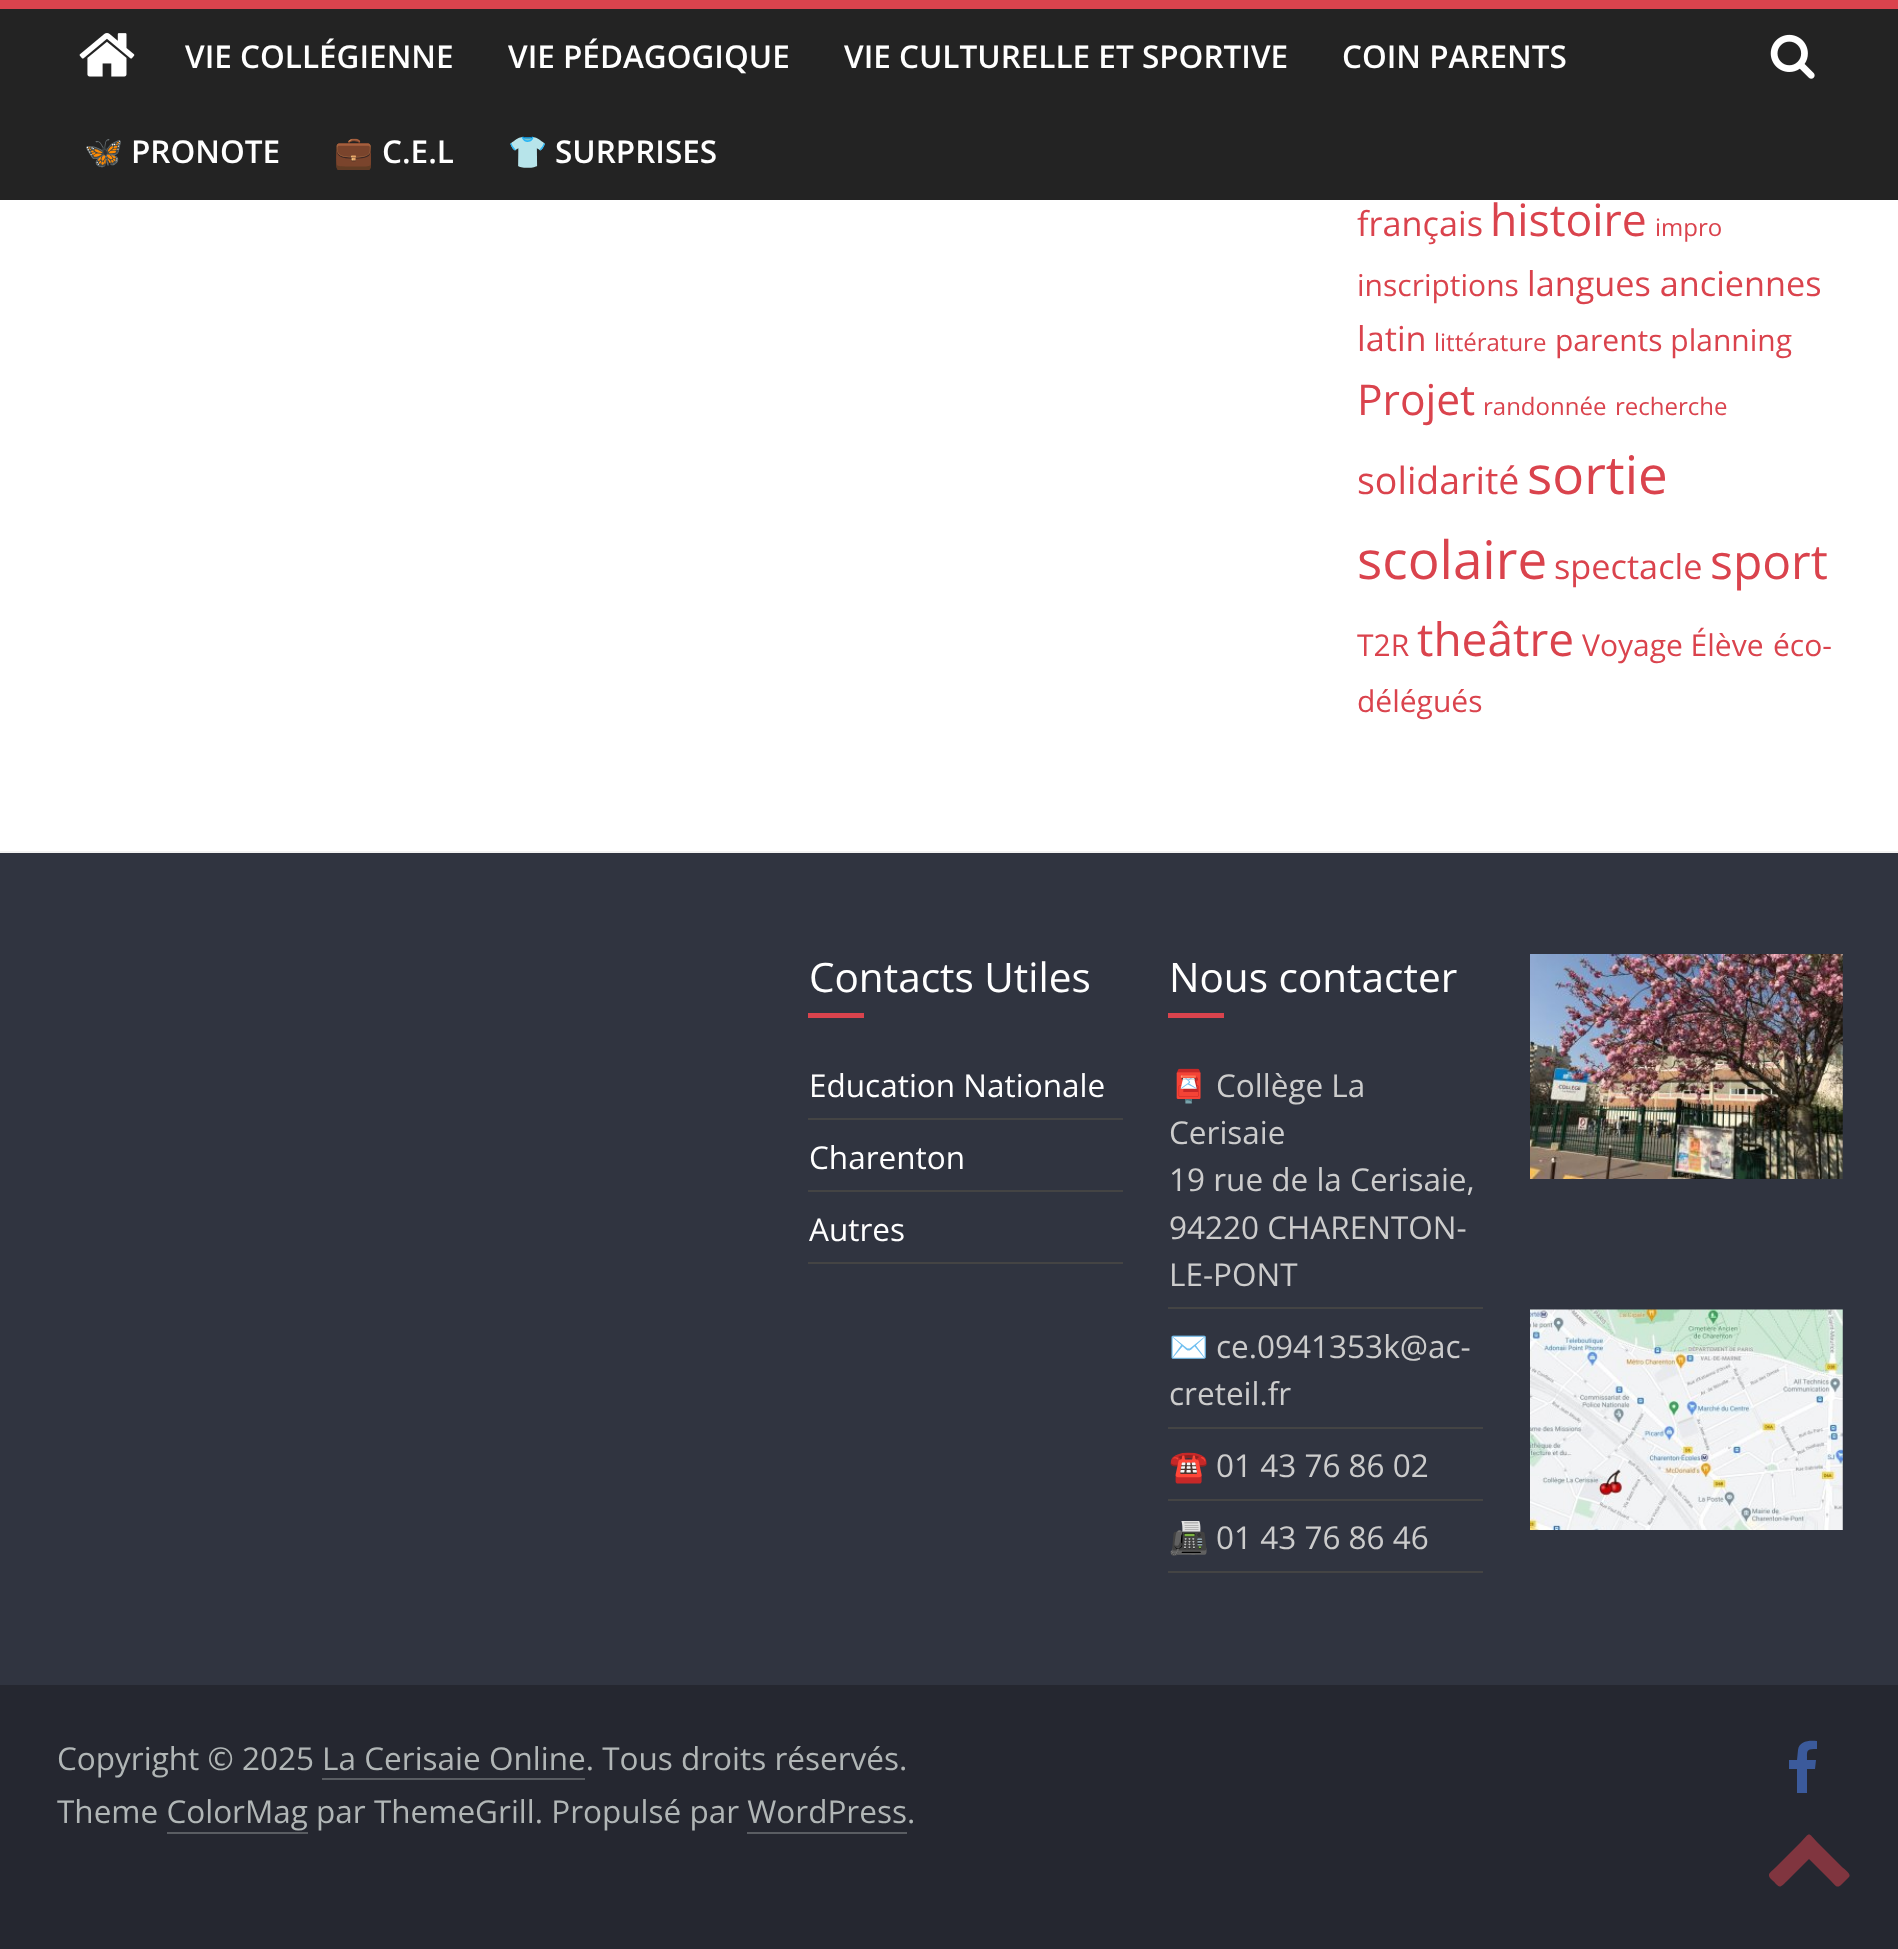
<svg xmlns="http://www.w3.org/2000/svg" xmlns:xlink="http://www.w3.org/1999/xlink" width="1898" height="1949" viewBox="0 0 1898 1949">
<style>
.cls-1{font:600 31.5px Open Sans;fill:#ffffff}
.cls-2{font:bold 31.5px Noto Color Emoji;fill:#ffffff}
.cls-3{font:34.25px Open Sans;fill:#da434d}
.cls-4{font:44.5px Open Sans;fill:#da434d}
.cls-5{font:24px Open Sans;fill:#da434d}
.cls-6{font:30px Open Sans;fill:#da434d}
.cls-7{font:42.5px Open Sans;fill:#da434d}
.cls-8{font:37.5px Open Sans;fill:#da434d}
.cls-9{font:53px Open Sans;fill:#da434d}
.cls-10{font:48px Open Sans;fill:#da434d}
.cls-11{font:46px Open Sans;fill:#da434d}
.cls-12{font:40.5px Open Sans;fill:#ffffff}
.cls-13{font:31.5px Open Sans;fill:#ffffff}
.cls-14{font:31.5px Noto Color Emoji;fill:#cccccc}
.cls-15{font:31.5px Open Sans;fill:#cccccc}
.cls-16{font:31.5px Open Sans;fill:#b1b6b6}
</style>
<rect width="100%" height="100%" fill="#ffffff"/>
<rect fill="#232323" x="0" y="9" width="1898" height="191"/>
<rect fill="#da434d" x="0" y="0" width="1898" height="9"/>
<image xlink:href="image0.png" x="79" y="33" width="56" height="44"/>
<image xlink:href="image1.png" x="1770" y="34" width="45" height="45"/>
<rect fill="#303440" x="0" y="853" width="1898" height="832"/>
<rect fill="#f2f2f2" x="0" y="851" width="1898" height="2"/>
<rect fill="#da434d" x="808" y="1013" width="56" height="5"/>
<rect fill="#444444" x="808" y="1118" width="315" height="2"/>
<rect fill="#444444" x="808" y="1190" width="315" height="2"/>
<rect fill="#444444" x="808" y="1262" width="315" height="2"/>
<rect fill="#da434d" x="1168" y="1013" width="56" height="5"/>
<rect fill="#444444" x="1168" y="1307" width="315" height="2"/>
<rect fill="#444444" x="1168" y="1427" width="315" height="2"/>
<rect fill="#444444" x="1168" y="1499" width="315" height="2"/>
<rect fill="#444444" x="1168" y="1571" width="315" height="2"/>
<image xlink:href="image2.png" x="1530" y="954" width="313" height="225"/>
<image xlink:href="image3.png" x="1530" y="1309" width="313" height="221"/>
<rect fill="#252730" x="0" y="1685" width="1898" height="264"/>
<rect fill="#5a5d62" x="322" y="1778" width="263" height="2"/>
<rect fill="#5a5d62" x="167" y="1832" width="141" height="2"/>
<rect fill="#5a5d62" x="747" y="1832" width="160" height="2"/>
<path fill="#3b5a9b" d="M1817 1741V1749C1806 1749 1807 1750 1807 1760H1816L1815 1769H1807V1793H1797V1769H1789V1760H1797L1798 1750C1799 1741 1809 1740 1817 1741Z"/>
<path fill="#80353f" d="M1849 1877L1842 1884C1837 1889 1836 1886 1831 1881L1809 1859L1787 1881C1778 1890 1780 1887 1771 1879C1766 1874 1771 1872 1776 1867L1801 1842C1810 1832 1808 1832 1817 1842L1842 1867C1843 1868 1852 1874 1849 1877Z"/>
<text class="cls-1" x="185" y="68">VIE COLLÉGIENNE</text>
<text class="cls-1" x="508" y="68">VIE PÉDAGOGIQUE</text>
<text class="cls-1" x="844" y="68">VIE CULTURELLE ET SPORTIVE</text>
<text class="cls-1" x="1342" y="68">COIN PARENTS</text>
<text class="cls-2" x="84" y="163">🦋</text>
<text class="cls-1" x="131" y="163">PRONOTE</text>
<text class="cls-2" x="334" y="163">💼</text>
<text class="cls-1" x="382" y="163">C.E.L</text>
<text class="cls-2" x="508" y="163">👕</text>
<text class="cls-1" x="555" y="163">SURPRISES</text>
<text class="cls-3" x="1357" y="236">français</text>
<text class="cls-4" x="1490" y="236">histoire</text>
<text class="cls-5" x="1655" y="236">impro</text>
<text class="cls-6" x="1357" y="296">inscriptions</text>
<text class="cls-3" x="1527" y="296">langues anciennes</text>
<text class="cls-3" x="1357" y="351">latin</text>
<text class="cls-5" x="1434" y="351">littérature</text>
<text class="cls-6" x="1555" y="351">parents planning</text>
<text class="cls-7" x="1357" y="415">Projet</text>
<text class="cls-5" x="1483" y="415">randonnée</text>
<text class="cls-5" x="1615" y="415">recherche</text>
<text class="cls-8" x="1357" y="494">solidarité</text>
<text class="cls-9" x="1527" y="494">sortie</text>
<text class="cls-9" x="1357" y="579">scolaire</text>
<text class="cls-3" x="1554" y="579">spectacle</text>
<text class="cls-10" x="1710" y="579">sport</text>
<text class="cls-6" x="1357" y="656">T2R</text>
<text class="cls-11" x="1417" y="656">theâtre</text>
<text class="cls-6" x="1582" y="656">Voyage Élève</text>
<text class="cls-6" x="1773" y="656">éco-</text>
<text class="cls-6" x="1357" y="712">délégués</text>
<text class="cls-12" x="809" y="992">Contacts Utiles</text>
<text class="cls-13" x="809" y="1097">Education Nationale</text>
<text class="cls-13" x="809" y="1169">Charenton</text>
<text class="cls-13" x="809" y="1241">Autres</text>
<text class="cls-12" x="1169" y="992">Nous contacter</text>
<text class="cls-14" x="1169" y="1097">📮</text>
<text class="cls-15" x="1216" y="1097">Collège La</text>
<text class="cls-15"><tspan x="1169" y="1144">Cerisaie</tspan><tspan x="1169" y="1191">19 rue de la Cerisaie,</tspan><tspan x="1169" y="1239">94220 CHARENTON-</tspan><tspan x="1169" y="1286">LE-PONT</tspan></text>
<text class="cls-14" x="1169" y="1358">✉️</text>
<text class="cls-15" x="1216" y="1358">ce.0941353k@ac-</text>
<text class="cls-15" x="1169" y="1405">creteil.fr</text>
<text class="cls-14" x="1169" y="1477">☎️</text>
<text class="cls-15" x="1216" y="1477">01 43 76 86 02</text>
<text class="cls-14" x="1169" y="1549">📠</text>
<text class="cls-15" x="1216" y="1549">01 43 76 86 46</text>
<text class="cls-16"><tspan x="57" y="1770">Copyright © 2025 La Cerisaie Online. Tous droits réservés.</tspan><tspan x="57" y="1823">Theme ColorMag par ThemeGrill. Propulsé par WordPress.</tspan></text>
</svg>
